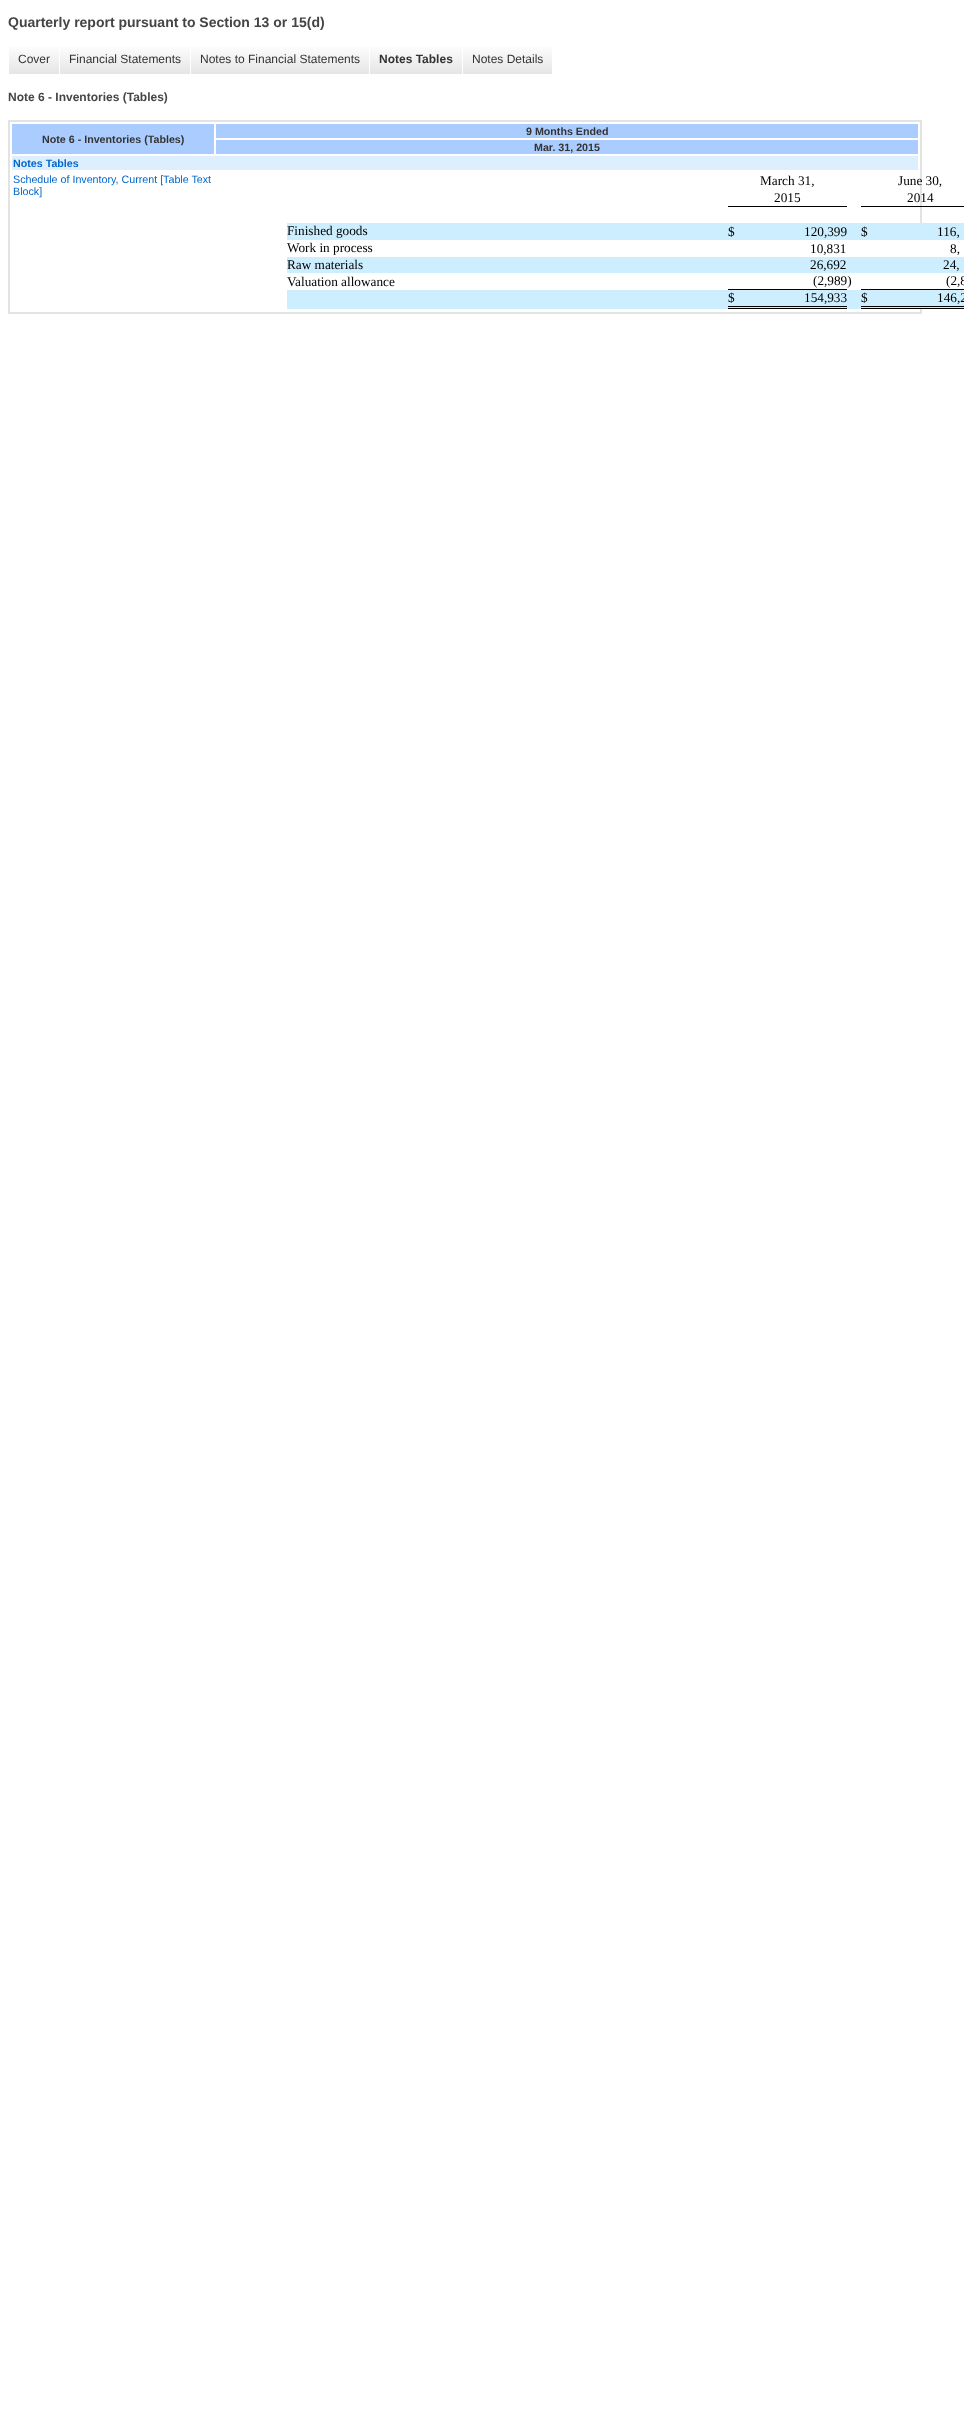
<svg xmlns="http://www.w3.org/2000/svg" xmlns:xlink="http://www.w3.org/1999/xlink" width="964" height="2436" viewBox="0 0 964 2436">
<style>
.cls-1{font:bold 14px Liberation Sans;fill:#454545}
.cls-2{font:12px Liberation Sans;fill:#333333}
.cls-3{font:bold 12px Liberation Sans;fill:#333333}
.cls-4{font:bold 12px Liberation Sans;fill:#454545}
.cls-5{font:bold 10.7px Liberation Sans;fill:#333333}
.cls-6{font:bold 10.7px Liberation Sans;fill:#0066cc}
.cls-7{font:10.7px Liberation Sans;fill:#0066cc}
.cls-8{font:13.25px Liberation Serif;fill:#000000}
</style>
<defs>
<linearGradient id="g1" gradientUnits="userSpaceOnUse" x1="34" y1="44" x2="34" y2="74"><stop offset="0" stop-color="#ffffff"/><stop offset="1" stop-color="#e5e5e5"/></linearGradient>
<linearGradient id="g2" gradientUnits="userSpaceOnUse" x1="125" y1="44" x2="125" y2="74"><stop offset="0" stop-color="#ffffff"/><stop offset="1" stop-color="#e5e5e5"/></linearGradient>
<linearGradient id="g3" gradientUnits="userSpaceOnUse" x1="280" y1="44" x2="280" y2="74"><stop offset="0" stop-color="#ffffff"/><stop offset="1" stop-color="#e5e5e5"/></linearGradient>
<linearGradient id="g4" gradientUnits="userSpaceOnUse" x1="416" y1="44" x2="416" y2="74"><stop offset="0" stop-color="#ffffff"/><stop offset="1" stop-color="#e5e5e5"/></linearGradient>
<linearGradient id="g5" gradientUnits="userSpaceOnUse" x1="508" y1="44" x2="508" y2="74"><stop offset="0" stop-color="#ffffff"/><stop offset="1" stop-color="#e5e5e5"/></linearGradient>
</defs>
<rect width="100%" height="100%" fill="#ffffff"/>
<rect fill="url(#g1)" x="9" y="47" width="50" height="27"/>
<rect fill="url(#g2)" x="60" y="47" width="130" height="27"/>
<rect fill="url(#g3)" x="191" y="47" width="178" height="27"/>
<rect fill="url(#g4)" x="370" y="47" width="92" height="27"/>
<rect fill="url(#g5)" x="463" y="47" width="89" height="27"/>
<rect fill="none" stroke="#e3e3e3" stroke-width="2" x="9" y="121" width="912" height="192"/>
<rect fill="#aaccff" x="216" y="124" width="702" height="14"/>
<rect fill="#aaccff" x="12" y="124" width="202" height="30"/>
<rect fill="#aaccff" x="216" y="140" width="702" height="14"/>
<rect fill="#ddeeff" x="12" y="156" width="906" height="14"/>
<rect fill="#000000" x="728" y="206" width="119" height="1"/>
<rect fill="#000000" x="861" y="206" width="103" height="1"/>
<rect fill="#cceeff" x="287" y="223" width="677" height="17"/>
<rect fill="#ffffff" x="920" y="240" width="2" height="17"/>
<rect fill="#cceeff" x="287" y="257" width="677" height="16"/>
<rect fill="#ffffff" x="920" y="273" width="2" height="17"/>
<rect fill="#000000" x="728" y="289" width="119" height="1"/>
<rect fill="#000000" x="861" y="289" width="103" height="1"/>
<rect fill="#cceeff" x="287" y="290" width="677" height="19"/>
<rect fill="#000000" x="728" y="306" width="119" height="1"/>
<rect fill="#000000" x="728" y="308" width="119" height="1"/>
<rect fill="#000000" x="861" y="306" width="103" height="1"/>
<rect fill="#000000" x="861" y="308" width="103" height="1"/>
<text class="cls-1" x="8" y="27">Quarterly report pursuant to Section 13 or 15(d)</text>
<text class="cls-2" x="18" y="63">Cover</text>
<text class="cls-2" x="69" y="63">Financial Statements</text>
<text class="cls-2" x="200" y="63">Notes to Financial Statements</text>
<text class="cls-3" x="379" y="63">Notes Tables</text>
<text class="cls-2" x="472" y="63">Notes Details</text>
<text class="cls-4" x="8" y="101">Note 6 - Inventories (Tables)</text>
<text class="cls-5" x="526" y="135">9 Months Ended</text>
<text class="cls-5" x="42" y="143">Note 6 - Inventories (Tables)</text>
<text class="cls-5" x="534" y="151">Mar. 31, 2015</text>
<text class="cls-6" x="13" y="167">Notes Tables</text>
<text class="cls-7"><tspan x="13" y="183">Schedule of Inventory, Current [Table Text</tspan><tspan x="13" y="195">Block]</tspan></text>
<text class="cls-8" x="760" y="185">March 31,</text>
<text class="cls-8" x="898" y="185">June 30,</text>
<text class="cls-8" x="774" y="202">2015</text>
<text class="cls-8" x="907" y="202">2014</text>
<text class="cls-8" x="287" y="235">Finished goods</text>
<text class="cls-8" x="728" y="236">$</text>
<text class="cls-8" x="804" y="236">120,399</text>
<text class="cls-8" x="861" y="236">$</text>
<text class="cls-8" x="937" y="236">116,</text>
<text class="cls-8" x="287" y="252">Work in process</text>
<text class="cls-8" x="810" y="253">10,831</text>
<text class="cls-8" x="950" y="253">8,</text>
<text class="cls-8" x="287" y="269">Raw materials</text>
<text class="cls-8" x="810" y="269">26,692</text>
<text class="cls-8" x="943" y="269">24,</text>
<text class="cls-8" x="287" y="286">Valuation allowance</text>
<text class="cls-8" x="813" y="285">(2,989)</text>
<text class="cls-8" x="946" y="285">(2,8</text>
<text class="cls-8" x="728" y="302">$</text>
<text class="cls-8" x="804" y="302">154,933</text>
<text class="cls-8" x="861" y="302">$</text>
<text class="cls-8" x="937" y="302">146,2</text>
</svg>
